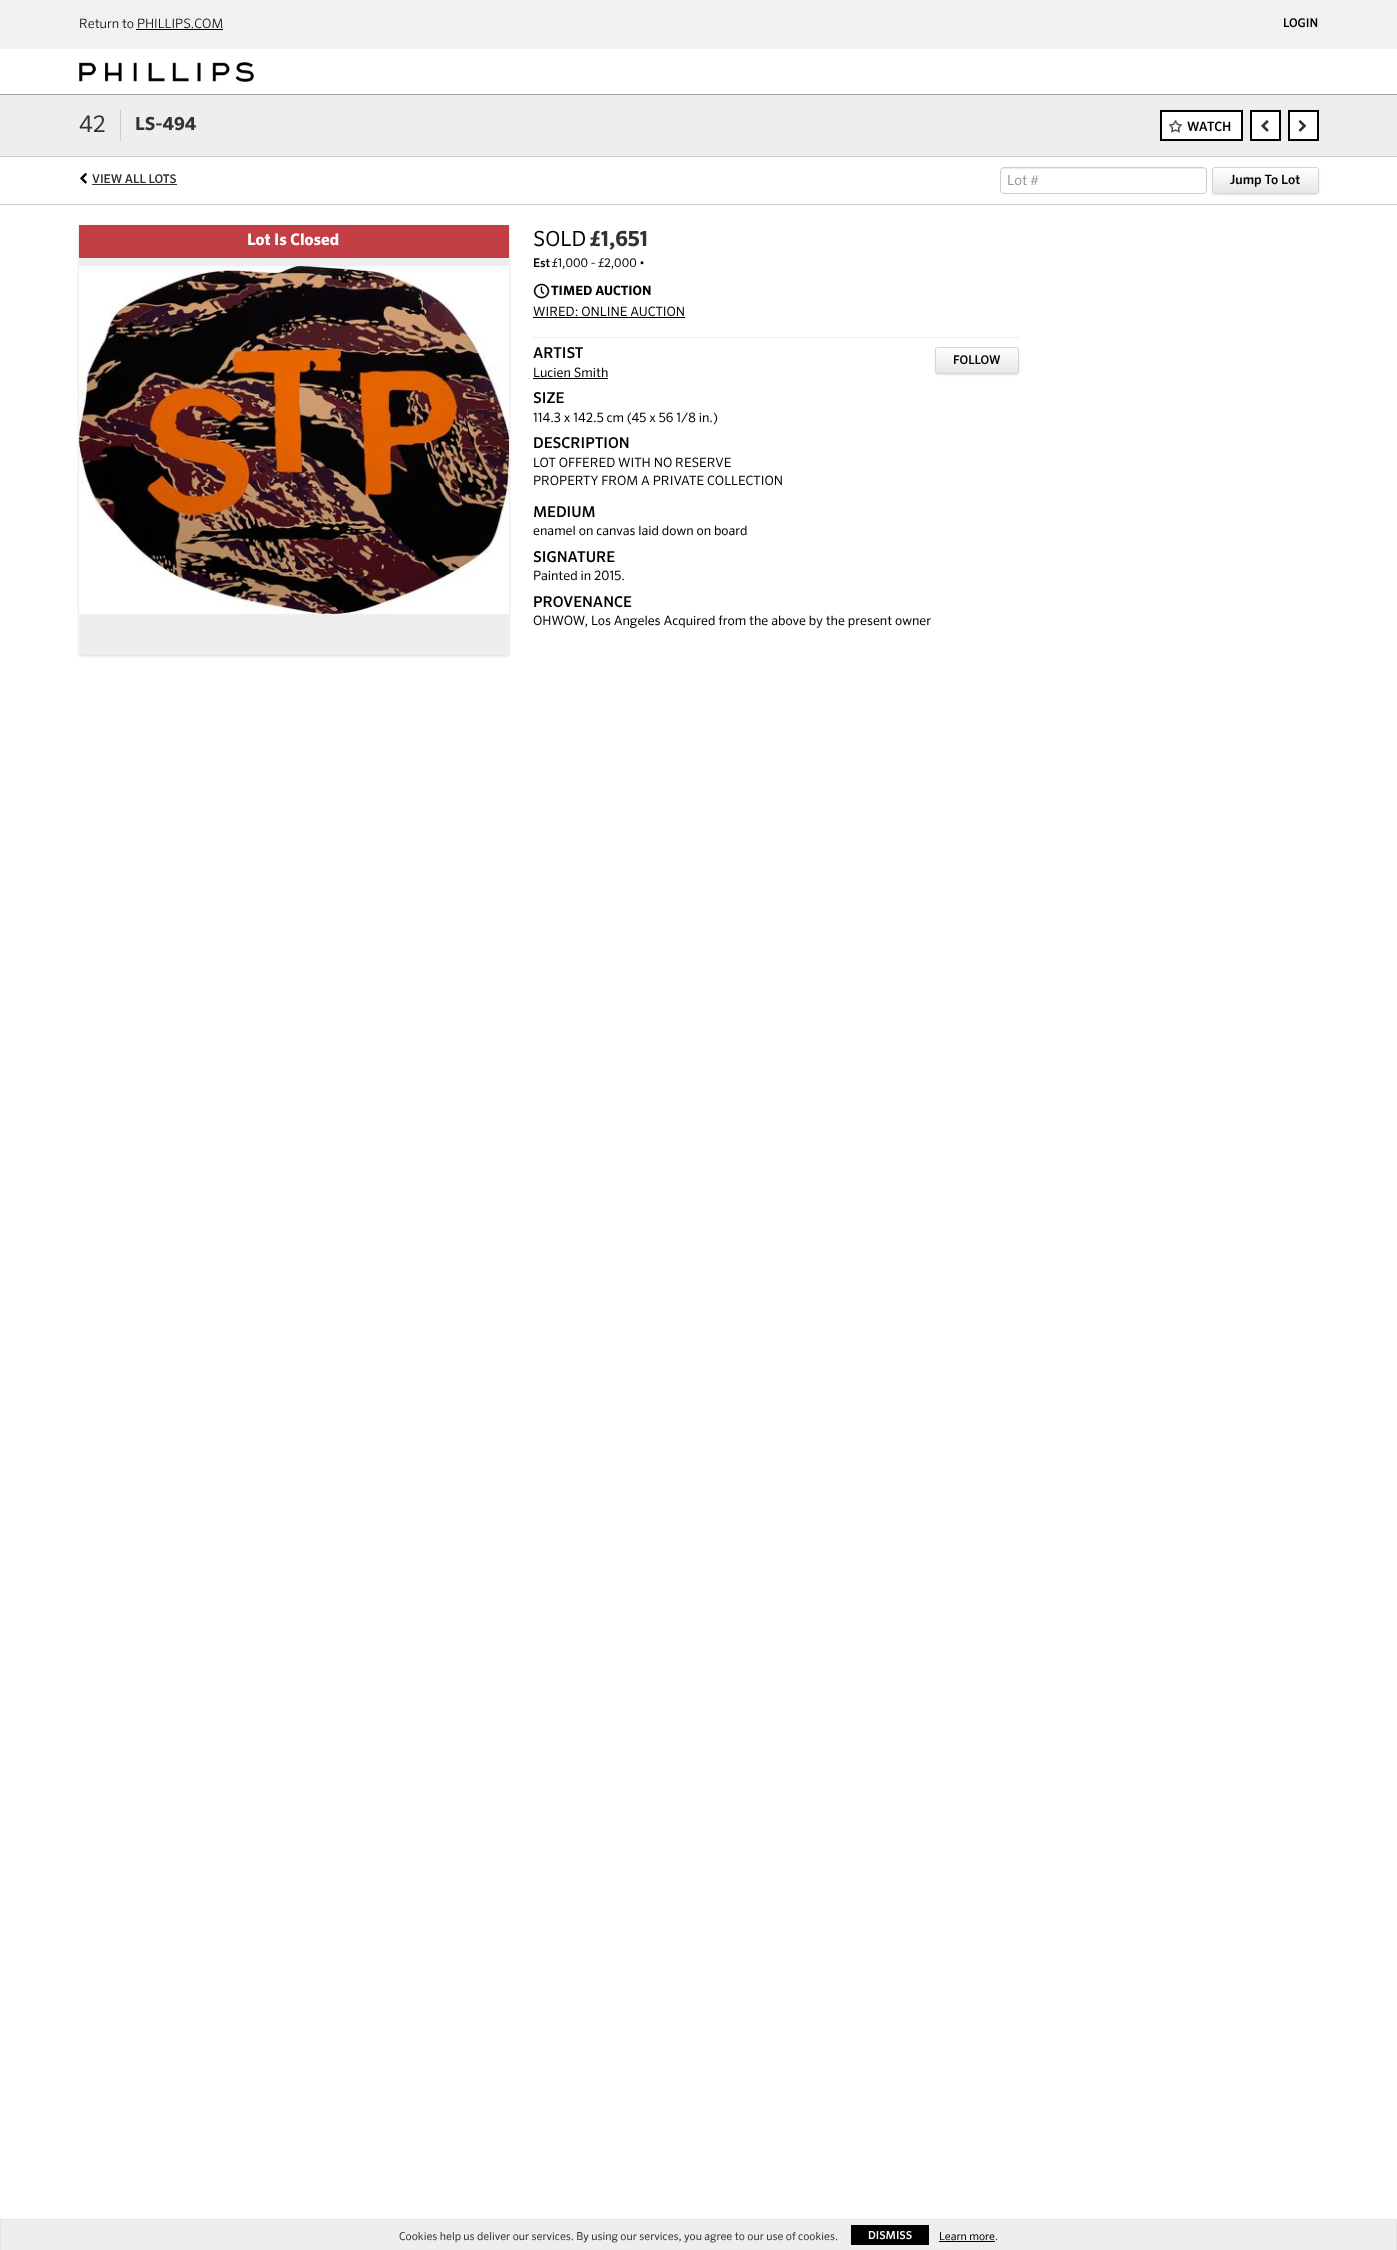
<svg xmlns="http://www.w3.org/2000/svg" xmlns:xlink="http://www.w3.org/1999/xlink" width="1397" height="2250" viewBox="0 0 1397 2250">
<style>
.cls-1{font:300 13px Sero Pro;fill:#000000}
.cls-2{font:500 12px Sero Pro;fill:#000000}
.cls-3{font:23px Sero Pro;fill:#333333}
.cls-4{font:bold 18px Sero Pro;fill:#333333}
.cls-5{font:500 13px Sero Pro;fill:#000000}
.cls-6{font:500 12px Sero Pro;fill:#333333}
.cls-7{font:14px Sero Pro;fill:#999999}
.cls-8{font:bold 16px Sero Pro;fill:#ffffff}
.cls-9{font:21px Sero Pro;fill:#000000}
.cls-10{font:bold 21px Sero Pro;fill:#333333}
.cls-11{font:12px Sero Pro;fill:#000000}
.cls-12{font:bold 13px Sero Pro;fill:#000000}
.cls-13{font:13px Sero Pro;fill:#000000}
.cls-14{font:500 15px Sero Pro;fill:#000000}
.cls-15{font:11px Sero Pro;fill:#333333}
.cls-16{font:500 11px Sero Pro;fill:#ffffff}
.cls-17{font:11px Sero Pro;fill:#000000}
</style>
<defs>
<clipPath id="clip1"><rect x="1212" y="167" width="107" height="27" rx="3"/></clipPath>
<linearGradient id="g1" gradientUnits="userSpaceOnUse" x1="1266" y1="168" x2="1266" y2="193"><stop offset="0" stop-color="#ffffff"/><stop offset="1" stop-color="#e6e6e6"/></linearGradient>
<clipPath id="clip2"><rect x="935" y="347" width="84" height="27" rx="3"/></clipPath>
<linearGradient id="g2" gradientUnits="userSpaceOnUse" x1="977" y1="348" x2="977" y2="373"><stop offset="0" stop-color="#ffffff"/><stop offset="1" stop-color="#e6e6e6"/></linearGradient>
</defs>
<rect width="100%" height="100%" fill="#ffffff"/>
<rect fill="#a3a3a3" x="0" y="94" width="1397" height="1"/>
<rect fill="#f1f1f1" x="0" y="0" width="1397" height="49"/>
<rect fill="#000000" x="136" y="29" width="87" height="1"/>
<image xlink:href="image0.png" x="79" y="62" width="175" height="20"/>
<rect fill="#eeeeee" x="0" y="95" width="1397" height="61"/>
<rect fill="#cccccc" x="0" y="156" width="1397" height="1"/>
<rect fill="#cccccc" x="120" y="110" width="1" height="31"/>
<rect fill="#ffffff" stroke="#000000" stroke-width="2" x="1161" y="111" width="81" height="29"/>
<image xlink:href="image1.png" x="1168" y="119" width="15" height="14"/>
<rect fill="#ffffff" stroke="#000000" stroke-width="2" x="1251" y="111" width="29" height="29"/>
<image xlink:href="image2.png" x="1261" y="120" width="8" height="12"/>
<rect fill="#ffffff" stroke="#000000" stroke-width="2" x="1289" y="111" width="29" height="29"/>
<image xlink:href="image3.png" x="1298" y="120" width="9" height="12"/>
<image xlink:href="image4.png" x="80" y="172" width="7" height="12"/>
<rect fill="#333333" x="92" y="184" width="85" height="1"/>
<path fill="#ececec" d="M1004 169H1203C1205 169 1206 170 1206 172C1206 170 1205 168 1203 168H1004C1002 168 1001 170 1001 172C1001 170 1002 169 1004 169Z"/>
<rect fill="none" stroke="#cccccc" x="1000.5" y="167.5" width="206" height="26" rx="3.5"/>
<rect fill="#000000" fill-opacity="0.2" filter="blur(1.5px)" x="1213" y="169" width="105" height="25" rx="2"/>
<g clip-path="url(#clip1)">
<rect fill="url(#g1)" x="1212" y="168" width="107" height="25"/>
</g>
<rect fill="none" stroke="#d4d4d4" x="1212.5" y="167.5" width="106" height="26" rx="2.5"/>
<rect fill="#cccccc" x="0" y="204" width="1397" height="1"/>
<rect fill="#dad9d7" filter="blur(1.5px)" x="79" y="226" width="430" height="430"/>
<image xlink:href="image5.png" x="79" y="225" width="430" height="430"/>
<rect fill="#b9121a" fill-opacity="0.8" x="79" y="225" width="430" height="33"/>
<image xlink:href="image6.png" x="533" y="283" width="17" height="16"/>
<rect fill="#000000" x="533" y="317" width="152" height="1"/>
<rect fill="#eeeeee" x="533" y="337" width="486" height="1"/>
<rect fill="#000000" fill-opacity="0.2" filter="blur(1.5px)" x="936" y="349" width="82" height="25" rx="2"/>
<g clip-path="url(#clip2)">
<rect fill="url(#g2)" x="935" y="348" width="84" height="25"/>
</g>
<path fill="#ffffff" fill-opacity="0.4" d="M938 349H1016C1017 349 1018 350 1018 351C1018 344 1006 348 1003 348H951C948 348 936 344 936 351C936 350 937 349 938 349Z"/>
<rect fill="none" stroke="#d4d4d4" x="935.5" y="347.5" width="83" height="26" rx="2.5"/>
<rect fill="#000000" x="533" y="378" width="75" height="1"/>
<rect fill="#eeeeee" x="1" y="2220" width="1395" height="30"/>
<rect fill="#e4e4e4" x="0" y="2219" width="1397" height="1"/>
<rect fill="#e4e4e4" x="1396" y="2219" width="1" height="31"/>
<rect fill="#e4e4e4" x="0" y="2219" width="1" height="31"/>
<rect fill="#000000" x="851" y="2225" width="78" height="20"/>
<rect fill="#000000" x="939" y="2241" width="56" height="1"/>
<text class="cls-1" x="79" y="28">Return to PHILLIPS.COM</text>
<text class="cls-2" x="1283" y="27">LOGIN</text>
<text class="cls-3" x="79" y="132">42</text>
<text class="cls-4" x="135" y="130">LS-494</text>
<text class="cls-5" x="1187" y="131">WATCH</text>
<text class="cls-6" x="92" y="183">VIEW ALL LOTS</text>
<text class="cls-7" x="1007" y="185">Lot #</text>
<text class="cls-5" x="1230" y="184">Jump To Lot</text>
<text class="cls-8" x="247" y="245">Lot Is Closed</text>
<text class="cls-9" x="533" y="246">SOLD</text>
<text class="cls-10" x="590" y="246">£1,651</text>
<text class="cls-2" x="533" y="267">Est</text>
<text class="cls-11" x="552" y="267">£1,000 - £2,000 •</text>
<text class="cls-12" x="551" y="295">TIMED AUCTION</text>
<text class="cls-13" x="533" y="316">WIRED: ONLINE AUCTION</text>
<text class="cls-14" x="533" y="358">ARTIST</text>
<text class="cls-2" x="953" y="364">FOLLOW</text>
<text class="cls-13" x="533" y="377">Lucien Smith</text>
<text class="cls-14" x="533" y="403">SIZE</text>
<text class="cls-13" x="533" y="422">114.3 x 142.5 cm (45 x 56 1/8 in.)</text>
<text class="cls-14" x="533" y="448">DESCRIPTION</text>
<text class="cls-13"><tspan x="533" y="467">LOT OFFERED WITH NO RESERVE</tspan><tspan x="533" y="485">PROPERTY FROM A PRIVATE COLLECTION</tspan></text>
<text class="cls-14" x="533" y="517">MEDIUM</text>
<text class="cls-13" x="533" y="535">enamel on canvas laid down on board</text>
<text class="cls-14" x="533" y="562">SIGNATURE</text>
<text class="cls-13" x="533" y="580">Painted in 2015.</text>
<text class="cls-14" x="533" y="607">PROVENANCE</text>
<text class="cls-13" x="533" y="625">OHWOW, Los Angeles Acquired from the above by the present owner</text>
<text class="cls-15" x="399" y="2240">Cookies help us deliver our services. By using our services, you agree to our use of cookies.</text>
<text class="cls-16" x="868" y="2239">DISMISS</text>
<text class="cls-17" x="939" y="2240">Learn more</text>
<text class="cls-15" x="995" y="2240">.</text>
</svg>
